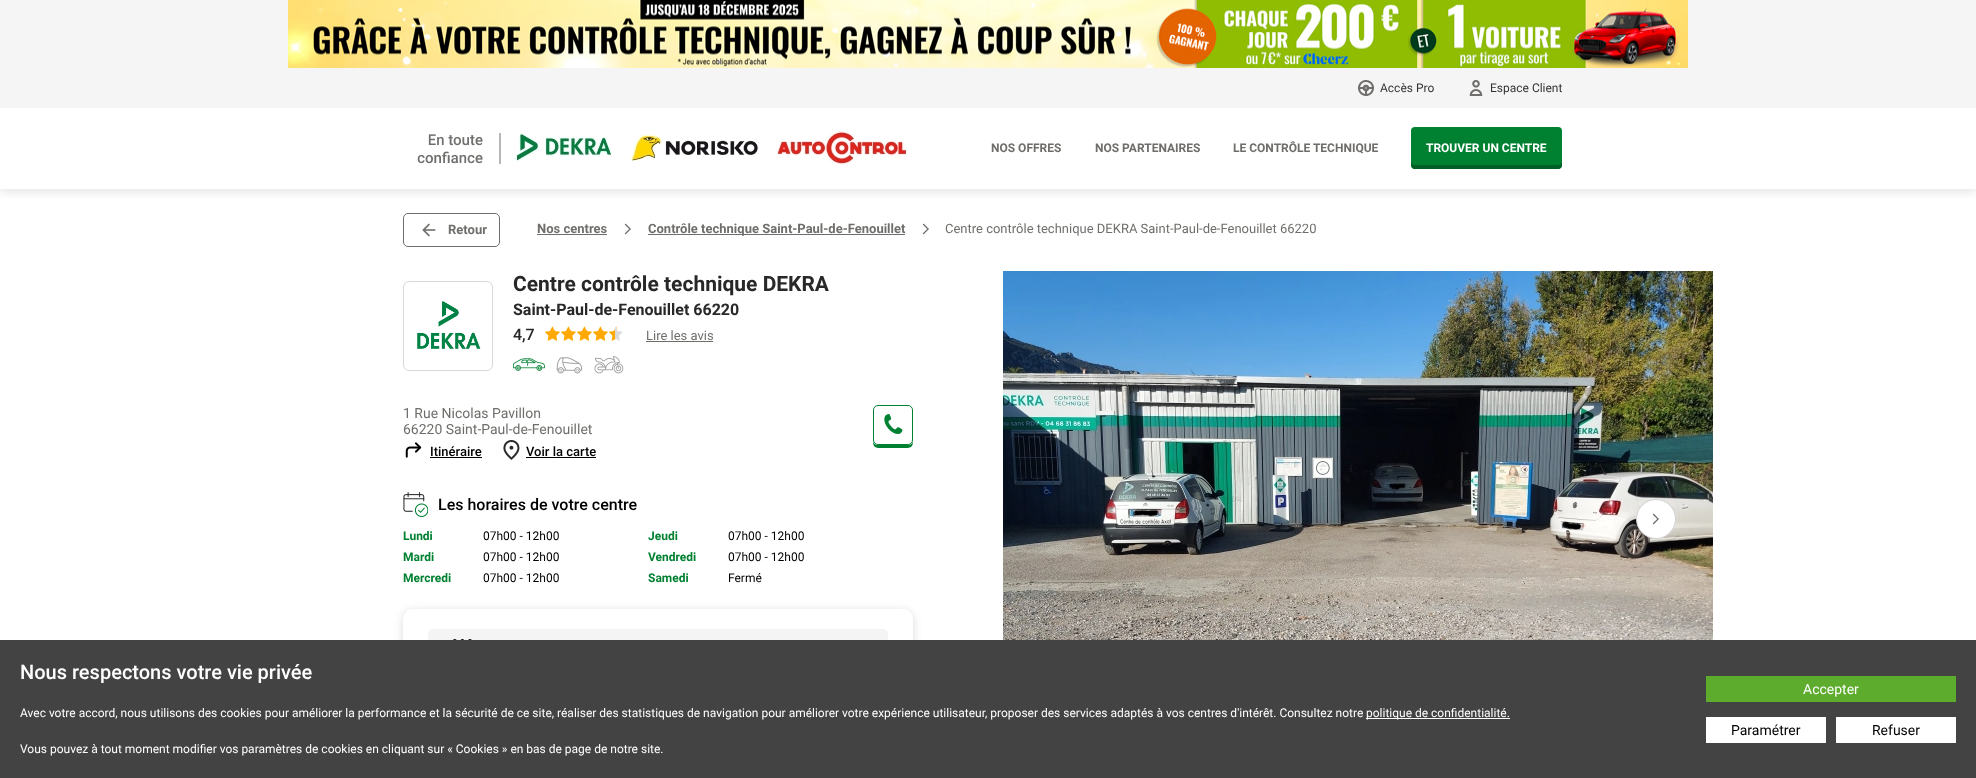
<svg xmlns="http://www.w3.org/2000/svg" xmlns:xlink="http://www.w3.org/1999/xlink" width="1976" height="778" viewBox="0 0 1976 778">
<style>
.cls-1{font:12px Roboto;fill:#333333}
.cls-2{font:bold 12px Roboto;fill:#6f6e6b}
.cls-3{font:bold 12px Roboto;fill:#ffffff}
.cls-4{font:bold 13px Roboto;fill:#6f6e6b}
.cls-5{font:13px Roboto;fill:#6f6e6b}
.cls-6{font:bold 21px Roboto;fill:#282828}
.cls-7{font:bold 16px Roboto;fill:#282828}
.cls-8{font:500 16px Roboto;fill:#282828}
.cls-9{font:14px Roboto;fill:#6f6e6b}
.cls-10{font:500 13px Roboto;fill:#000000}
.cls-11{font:500 16px Roboto;fill:#000000}
.cls-12{font:bold 12px Roboto;fill:#008132}
.cls-13{font:12px Roboto;fill:#000000}
.cls-14{font:500 20px Roboto;fill:#ffffff}
.cls-15{font:12px Roboto;fill:#ffffff}
.cls-16{font:14px Roboto;fill:#ffffff}
.cls-17{font:14px Roboto;fill:#000000}
</style>
<defs>
<clipPath id="clip1"><rect x="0" y="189" width="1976" height="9"/></clipPath>
</defs>
<rect width="100%" height="100%" fill="#f5f5f5"/>
<rect fill="#ffffff" x="0" y="189" width="1976" height="451"/>
<g clip-path="url(#clip1)">
<rect fill="#282828" fill-opacity="0.15" filter="blur(6px)" x="0" y="2" width="1976" height="189"/>
</g>
<image xlink:href="image0.png" x="288" y="0" width="1400" height="68"/>
<image xlink:href="image1.png" x="1358" y="80" width="16" height="16"/>
<image xlink:href="image2.png" x="1469" y="80" width="14" height="16"/>
<rect fill="#ffffff" x="0" y="108" width="1976" height="81"/>
<image xlink:href="image3.png" x="417" y="131" width="490" height="34"/>
<rect fill="#008132" x="1411" y="127" width="151" height="42" rx="4"/>
<path fill="#006025" d="M1411 161V165C1411 167 1413 169 1415 169H1558C1560 169 1562 167 1562 165V161C1562 163 1560 165 1558 165H1415C1413 165 1411 163 1411 161Z"/>
<rect fill="none" stroke="#6f6e6b" x="403.5" y="213.5" width="96" height="33" rx="4.5"/>
<image xlink:href="image4.png" x="422" y="223" width="14" height="14"/>
<rect fill="#6f6e6b" x="537" y="234" width="70" height="1"/>
<image xlink:href="image5.png" x="624" y="223" width="7" height="12"/>
<rect fill="#6f6e6b" x="648" y="234" width="257" height="1"/>
<image xlink:href="image5.png" x="922" y="223" width="7" height="12"/>
<rect fill="none" stroke="#d8d8d8" x="403.5" y="281.5" width="89" height="89" rx="5.5"/>
<image xlink:href="image6.png" x="417" y="301" width="64" height="48"/>
<image xlink:href="image7.png" x="545" y="326" width="15" height="15"/>
<image xlink:href="image7.png" x="561" y="326" width="15" height="15"/>
<image xlink:href="image7.png" x="577" y="326" width="15" height="15"/>
<image xlink:href="image7.png" x="593" y="326" width="15" height="15"/>
<image xlink:href="image8.png" x="609" y="326" width="8" height="15"/>
<image xlink:href="image9.png" x="614" y="326" width="9" height="15"/>
<rect fill="#6f6e6b" x="646" y="341" width="67" height="1"/>
<image xlink:href="image10.png" x="513" y="358" width="32" height="13"/>
<image xlink:href="image11.png" x="556" y="357" width="27" height="17"/>
<image xlink:href="image12.png" x="594" y="356" width="30" height="18"/>
<image xlink:href="image13.png" x="405" y="442" width="17" height="16"/>
<rect fill="#000000" x="430" y="457" width="52" height="1"/>
<image xlink:href="image14.png" x="503" y="440" width="17" height="20"/>
<rect fill="#000000" x="526" y="457" width="70" height="1"/>
<path fill="#008132" d="M873 440C873 448 875 448 883 448H903C911 448 913 448 913 440C913 443 911 445 908 445H878C875 445 873 443 873 440Z"/>
<rect fill="#ffffff" stroke="#008132" x="873.5" y="405.5" width="39" height="39" rx="4.5"/>
<image xlink:href="image15.png" x="884" y="414" width="19" height="20"/>
<image xlink:href="image16.png" x="403" y="492" width="25" height="25"/>
<rect fill="#000000" fill-opacity="0.15" filter="blur(5px)" x="403" y="611" width="510" height="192" rx="10"/>
<rect fill="#ffffff" x="403" y="609" width="510" height="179" rx="10"/>
<rect fill="#f4f4f4" x="428" y="629" width="460" height="44" rx="5"/>
<image xlink:href="image17.png" x="453" y="639" width="19" height="1"/>
<image xlink:href="image18.png" x="1003" y="271" width="710" height="369"/>
<circle fill="#ffffff" stroke="#d3d3d3" cx="1656" cy="519" r="19.5"/>
<image xlink:href="image5.png" x="1652" y="513" width="7" height="12"/>
<rect fill="#434343" x="0" y="640" width="1976" height="138"/>
<rect fill="#ffffff" x="1366" y="718" width="144" height="1"/>
<rect fill="#5dac2e" x="1706" y="676" width="250" height="26"/>
<rect fill="#ffffff" x="1706" y="717" width="120" height="26"/>
<rect fill="#ffffff" x="1836" y="717" width="120" height="26"/>
<text class="cls-1" x="1380" y="92">Accès Pro</text>
<text class="cls-1" x="1490" y="92">Espace Client</text>
<text class="cls-2" x="991" y="152">NOS OFFRES</text>
<text class="cls-2" x="1095" y="152">NOS PARTENAIRES</text>
<text class="cls-2" x="1233" y="152">LE CONTRÔLE TECHNIQUE</text>
<text class="cls-3" x="1426" y="152">TROUVER UN CENTRE</text>
<text class="cls-4" x="448" y="234">Retour</text>
<text class="cls-4" x="537" y="233">Nos centres</text>
<text class="cls-4" x="648" y="233">Contrôle technique Saint-Paul-de-Fenouillet</text>
<text class="cls-5" x="945" y="233">Centre contrôle technique DEKRA Saint-Paul-de-Fenouillet 66220</text>
<text class="cls-6" x="513" y="291">Centre contrôle technique DEKRA</text>
<text class="cls-7" x="513" y="315">Saint-Paul-de-Fenouillet 66220</text>
<text class="cls-8" x="513" y="340">4,7</text>
<text class="cls-5" x="646" y="340">Lire les avis</text>
<text class="cls-9"><tspan x="403" y="418">1 Rue Nicolas Pavillon</tspan><tspan x="403" y="434">66220 Saint-Paul-de-Fenouillet</tspan></text>
<text class="cls-10" x="430" y="456">Itinéraire</text>
<text class="cls-10" x="526" y="456">Voir la carte</text>
<text class="cls-11" x="438" y="510">Les horaires de votre centre</text>
<text class="cls-12" x="403" y="540">Lundi</text>
<text class="cls-13" x="483" y="540">07h00 - 12h00</text>
<text class="cls-12" x="648" y="540">Jeudi</text>
<text class="cls-13" x="728" y="540">07h00 - 12h00</text>
<text class="cls-12" x="403" y="561">Mardi</text>
<text class="cls-13" x="483" y="561">07h00 - 12h00</text>
<text class="cls-12" x="648" y="561">Vendredi</text>
<text class="cls-13" x="728" y="561">07h00 - 12h00</text>
<text class="cls-12" x="403" y="582">Mercredi</text>
<text class="cls-13" x="483" y="582">07h00 - 12h00</text>
<text class="cls-12" x="648" y="582">Samedi</text>
<text class="cls-13" x="728" y="582">Fermé</text>
<text class="cls-14" x="20" y="679">Nous respectons votre vie privée</text>
<text class="cls-15" x="20" y="717">Avec votre accord, nous utilisons des cookies pour améliorer la performance et la sécurité de ce site, réaliser des statistiques de navigation pour améliorer votre expérience utilisateur, proposer des services adaptés à vos centres d'intérêt. Consultez notre</text>
<text class="cls-15" x="1366" y="717">politique de confidentialité.</text>
<text class="cls-15" x="20" y="753">Vous pouvez à tout moment modifier vos paramètres de cookies en cliquant sur « Cookies » en bas de page de notre site.</text>
<text class="cls-16" x="1803" y="694">Accepter</text>
<text class="cls-17" x="1731" y="735">Paramétrer</text>
<text class="cls-17" x="1872" y="735">Refuser</text>
</svg>
